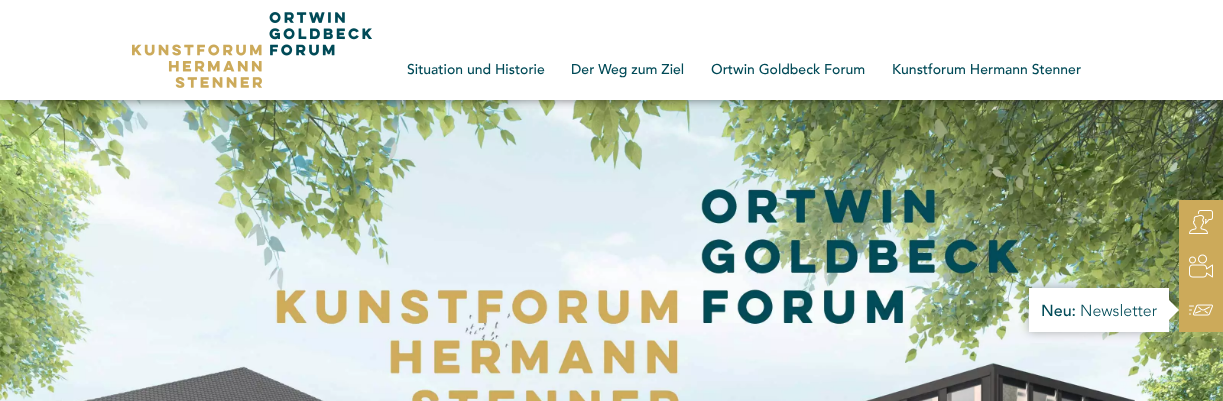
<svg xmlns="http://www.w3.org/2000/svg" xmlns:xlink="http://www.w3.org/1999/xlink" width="1223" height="401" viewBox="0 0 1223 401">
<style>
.cls-1{font:500 14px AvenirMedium;fill:#004a57}
.cls-2{font:500 16px AvenirMedium;fill:#004a57}
.cls-3{font:300 16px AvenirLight;fill:#004a57}
</style>
<defs>
<clipPath id="clip1"><rect x="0" y="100" width="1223" height="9"/></clipPath>
</defs>
<rect width="100%" height="100%" fill="#ffffff"/>
<image xlink:href="image1.png" x="0" y="100" width="1223" height="301"/>
<g clip-path="url(#clip1)">
<rect fill="#000000" fill-opacity="0.5" filter="blur(5px)" x="0" y="0" width="1223" height="100"/>
</g>
<image xlink:href="image0.png" x="132" y="12" width="240" height="76"/>
<rect fill="#ccaa5a" x="1179" y="200" width="44" height="132"/>
<image xlink:href="image2.png" x="1189" y="210" width="24" height="24"/>
<image xlink:href="image3.png" x="1189" y="254" width="24" height="24"/>
<image xlink:href="image4.png" x="1189" y="304" width="24" height="12"/>
<rect fill="#000000" fill-opacity="0.3" filter="blur(5px)" x="1029" y="288" width="140" height="44"/>
<rect fill="#ffffff" x="1029" y="288" width="140" height="44"/>
<path fill="#ffffff" d="M1169 320V300L1179 310Z"/>
<text class="cls-1" x="407" y="74">Situation und Historie</text>
<text class="cls-1" x="571" y="74">Der Weg zum Ziel</text>
<text class="cls-1" x="711" y="74">Ortwin Goldbeck Forum</text>
<text class="cls-1" x="892" y="74">Kunstforum Hermann Stenner</text>
<text class="cls-2" x="1041" y="316">Neu:</text>
<text class="cls-3" x="1080" y="316">Newsletter</text>
</svg>
